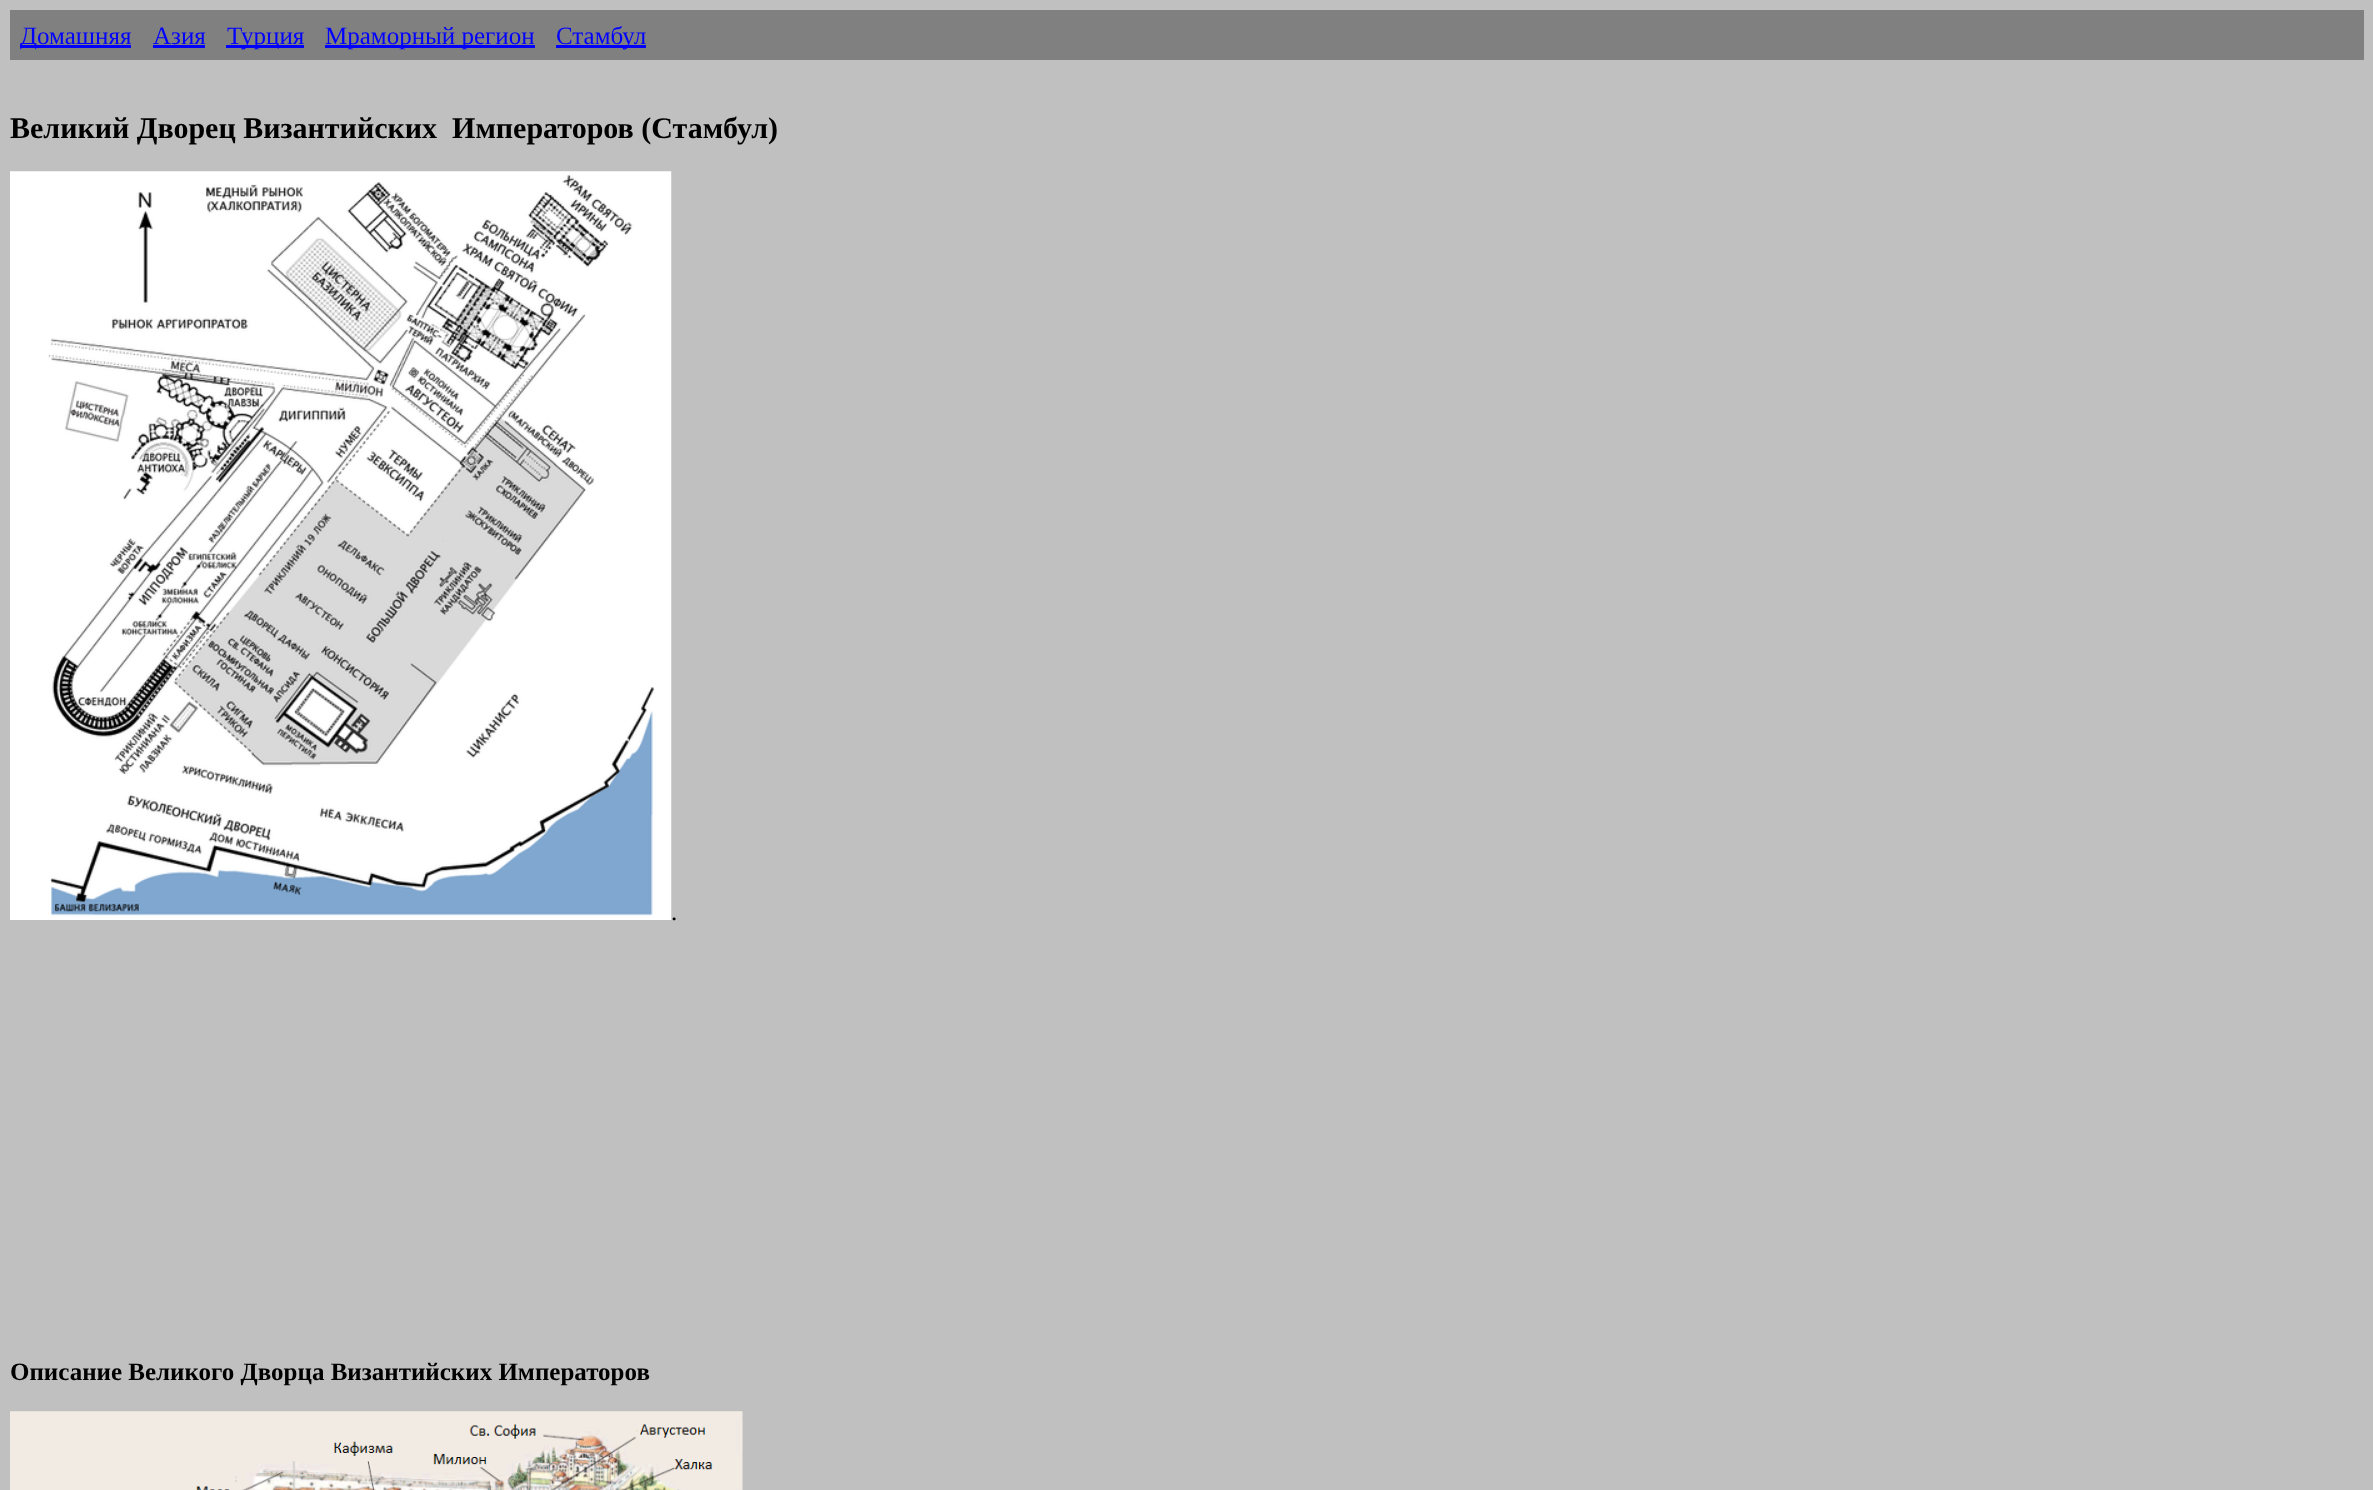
<svg xmlns="http://www.w3.org/2000/svg" xmlns:xlink="http://www.w3.org/1999/xlink" width="2373" height="1490" viewBox="0 0 2373 1490">
<style>
.cls-1{font:25px Liberation Serif;fill:#0000ff}
.cls-2{font:bold 30px Liberation Serif;fill:#000000}
.cls-3{font:25px Liberation Serif;fill:#000000}
.cls-4{font:bold 25px Liberation Serif;fill:#000000}
</style>
<rect width="100%" height="100%" fill="#c0c0c0"/>
<rect fill="#808080" x="10" y="10" width="2354" height="50"/>
<rect fill="#0000ff" x="20" y="45" width="111" height="3"/>
<rect fill="#0000ff" x="153" y="45" width="52" height="3"/>
<rect fill="#0000ff" x="226" y="45" width="78" height="3"/>
<rect fill="#0000ff" x="325" y="45" width="210" height="3"/>
<rect fill="#0000ff" x="556" y="45" width="90" height="3"/>
<image xlink:href="image0.png" x="10" y="171" width="662" height="749"/>
<image xlink:href="image1.png" x="10" y="1411" width="733" height="79"/>
<text class="cls-1" x="20" y="44">Домашняя</text>
<text class="cls-1" x="153" y="44">Азия</text>
<text class="cls-1" x="227" y="44">Турция</text>
<text class="cls-1" x="325" y="44">Мраморный регион</text>
<text class="cls-1" x="556" y="44">Стамбул</text>
<text class="cls-2" xml:space="preserve" x="10" y="138">Великий Дворец Византийских  Императоров (Стамбул)</text>
<text class="cls-3" x="671" y="920">.</text>
<text class="cls-4" x="10" y="1380">Описание Великого Дворца Византийских Императоров</text>
</svg>
